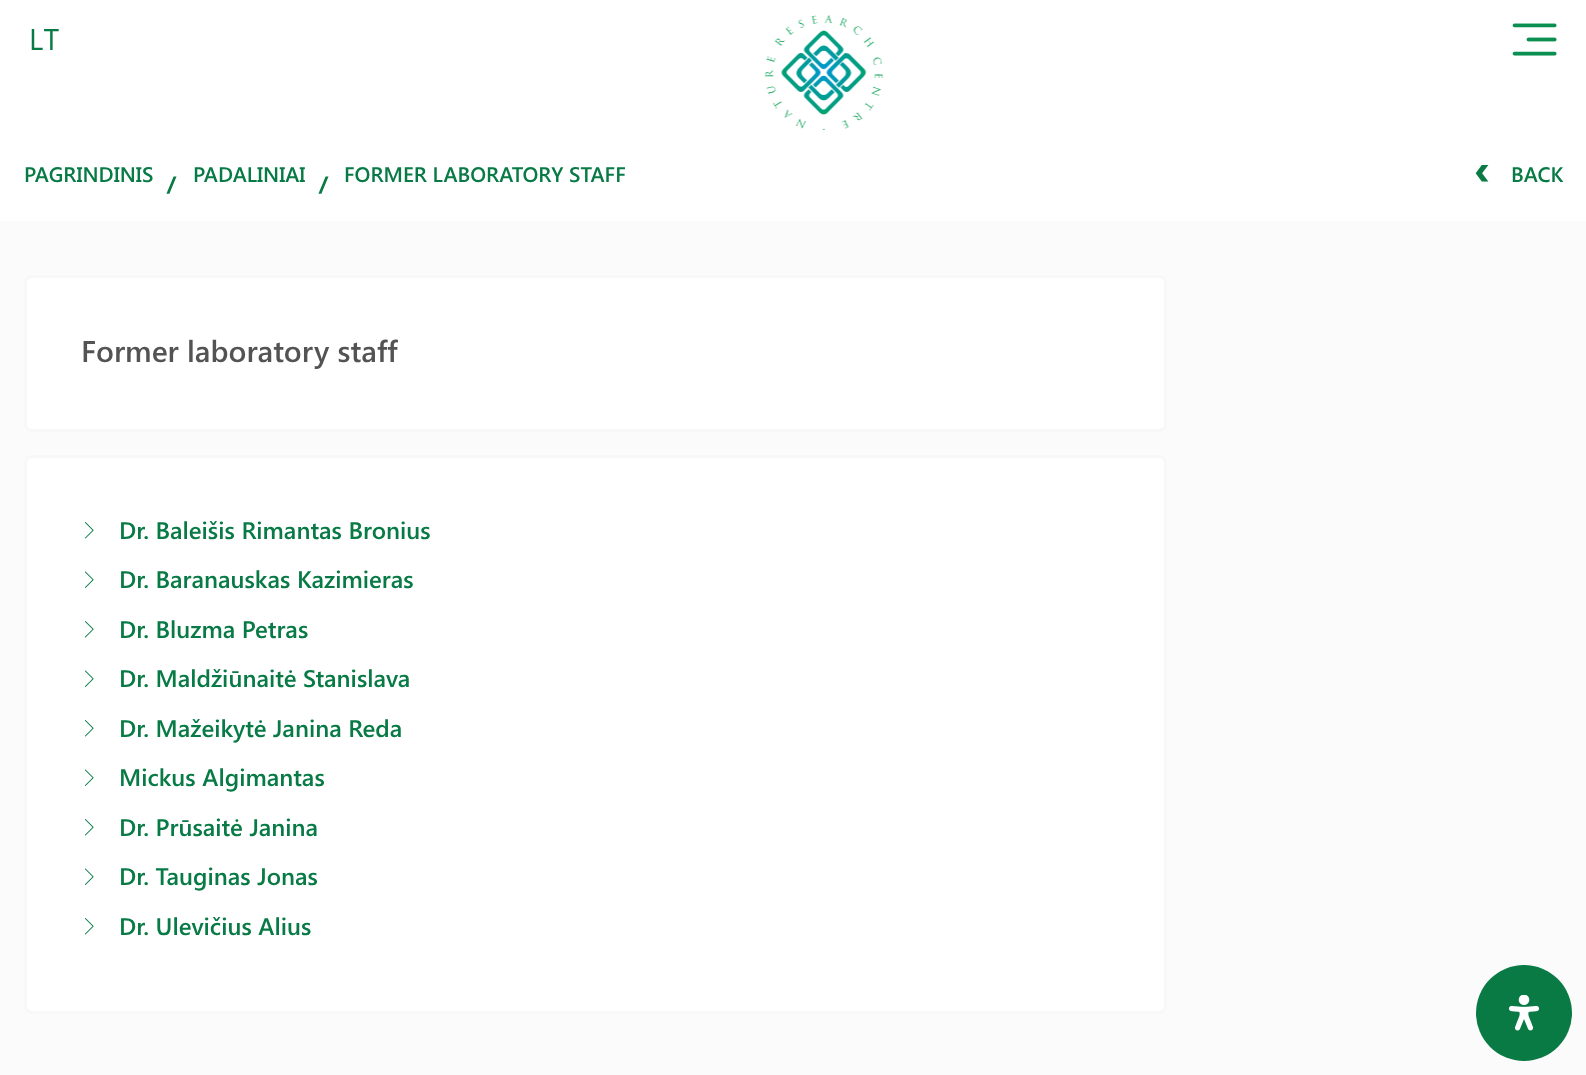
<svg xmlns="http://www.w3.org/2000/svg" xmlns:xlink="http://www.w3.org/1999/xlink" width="1586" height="1075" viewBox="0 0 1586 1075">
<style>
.cls-1{font:30px Segoe UI;letter-spacing:2px;fill:#087a45}
.cls-2{font:600 21px Segoe UI;fill:#087a45}
.cls-3{font:bold 21px Segoe UI;letter-spacing:-3px;fill:#087a45}
.cls-4{font:600 30px Segoe UI;fill:#535353}
.cls-5{font:600 24px Segoe UI;fill:#087a45}
</style>
<rect width="100%" height="100%" fill="#ffffff"/>
<image xlink:href="image0.png" x="764" y="15" width="120" height="115"/>
<image xlink:href="image1.png" x="1512" y="23" width="45" height="33"/>
<image xlink:href="image2.png" x="1475" y="165" width="14" height="17"/>
<rect fill="#fbfbfb" x="0" y="221" width="1586" height="854"/>
<rect fill="#ffffff" stroke="#f8f8f8" stroke-width="3" x="25.5" y="276.5" width="1140" height="154" rx="6.5"/>
<rect fill="#ffffff" stroke="#f8f8f8" stroke-width="3" x="25.5" y="456.5" width="1140" height="556" rx="6.5"/>
<image xlink:href="image3.png" x="84" y="522" width="10" height="17"/>
<image xlink:href="image4.png" x="84" y="571" width="10" height="17"/>
<image xlink:href="image3.png" x="84" y="621" width="10" height="17"/>
<image xlink:href="image4.png" x="84" y="670" width="10" height="17"/>
<image xlink:href="image3.png" x="84" y="720" width="10" height="17"/>
<image xlink:href="image4.png" x="84" y="769" width="10" height="17"/>
<image xlink:href="image3.png" x="84" y="819" width="10" height="17"/>
<image xlink:href="image4.png" x="84" y="868" width="10" height="17"/>
<image xlink:href="image3.png" x="84" y="918" width="10" height="17"/>
<circle fill="#0a7a45" cx="1524" cy="1013" r="48"/>
<image xlink:href="image5.png" x="1508" y="995" width="32" height="36"/>
<text class="cls-1" x="29" y="50">LT</text>
<text class="cls-2" x="24" y="182">PAGRINDINIS</text>
<text class="cls-3" x="176" y="179" transform="rotate(180 176 179)">/</text>
<text class="cls-2" x="193" y="182">PADALINIAI</text>
<text class="cls-3" x="328" y="179" transform="rotate(180 328 179)">/</text>
<text class="cls-2" x="344" y="182">FORMER LABORATORY STAFF</text>
<text class="cls-2" x="1511" y="182">BACK</text>
<text class="cls-4" x="81" y="362">Former laboratory staff</text>
<text class="cls-5" x="119" y="539">Dr. Baleišis Rimantas Bronius</text>
<text class="cls-5" x="119" y="588">Dr. Baranauskas Kazimieras</text>
<text class="cls-5" x="119" y="638">Dr. Bluzma Petras</text>
<text class="cls-5" x="119" y="687">Dr. Maldžiūnaitė Stanislava</text>
<text class="cls-5" x="119" y="737">Dr. Mažeikytė Janina Reda</text>
<text class="cls-5" x="119" y="786">Mickus Algimantas</text>
<text class="cls-5" x="119" y="836">Dr. Prūsaitė Janina</text>
<text class="cls-5" x="119" y="885">Dr. Tauginas Jonas</text>
<text class="cls-5" x="119" y="935">Dr. Ulevičius Alius</text>
</svg>
